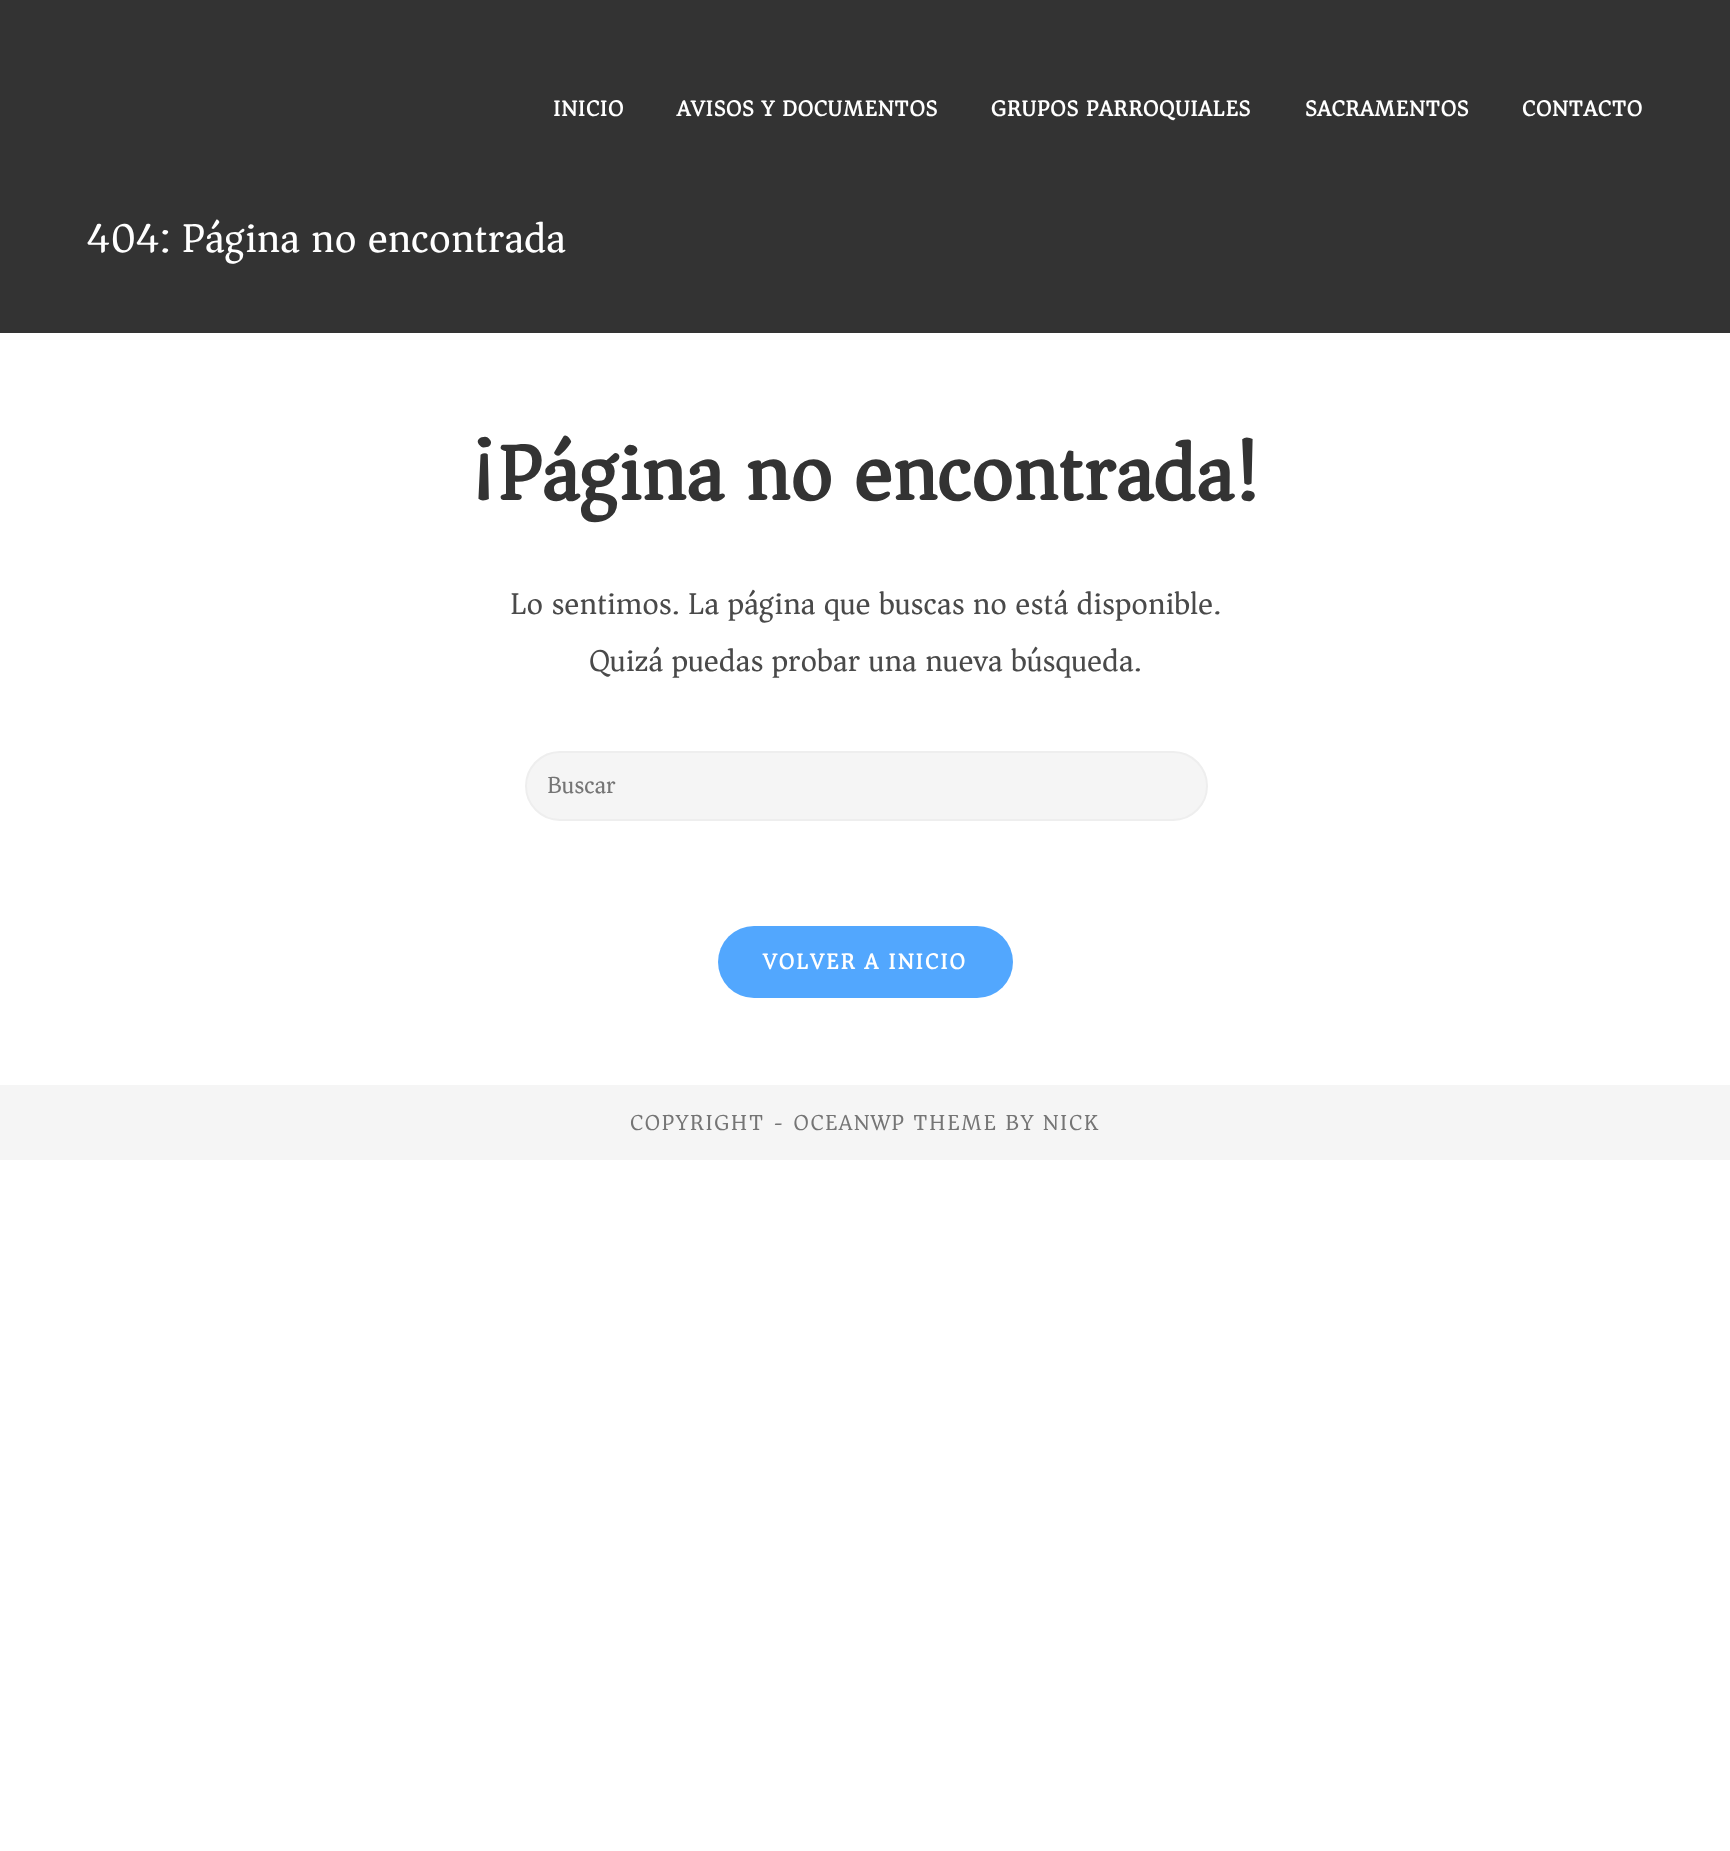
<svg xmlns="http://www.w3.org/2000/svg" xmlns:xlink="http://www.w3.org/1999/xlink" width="1730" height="1851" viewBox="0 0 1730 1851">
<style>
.cls-1{font:bold 22.75px Asar;letter-spacing:1px;fill:#ffffff}
.cls-2{font:42px Asar;fill:#ffffff}
.cls-3{font:bold 80.5px Asar;fill:#333333}
.cls-4{font:31.5px Asar;fill:#4a4a4a}
.cls-5{font:24.5px Asar;fill:#757575}
.cls-6{font:bold 22.75px Asar;letter-spacing:2.25px;fill:#ffffff}
.cls-7{font:22.75px Asar;letter-spacing:1.75px;fill:#757575}
</style>
<rect width="100%" height="100%" fill="#ffffff"/>
<rect fill="#333333" x="0" y="0" width="1730" height="333"/>
<rect fill="#f5f5f5" stroke="#eeeeee" stroke-width="2" x="526" y="752" width="681" height="68" rx="34"/>
<rect fill="#52a7fe" x="718" y="926" width="295" height="72" rx="36"/>
<rect fill="#f5f5f5" x="0" y="1085" width="1730" height="75"/>
<text class="cls-1" x="553" y="116">INICIO</text>
<text class="cls-1" x="677" y="116">AVISOS Y DOCUMENTOS</text>
<text class="cls-1" x="991" y="116">GRUPOS PARROQUIALES</text>
<text class="cls-1" x="1305" y="116">SACRAMENTOS</text>
<text class="cls-1" x="1522" y="116">CONTACTO</text>
<text class="cls-2" x="87" y="252">404: Página no encontrada</text>
<text class="cls-3" x="470" y="500">¡Página no encontrada!</text>
<text class="cls-4" x="510" y="614">Lo sentimos. La página que buscas no está disponible.</text>
<text class="cls-4" x="589" y="671">Quizá puedas probar una nueva búsqueda.</text>
<text class="cls-5" x="547" y="793">Buscar</text>
<text class="cls-6" x="763" y="969">VOLVER A INICIO</text>
<text class="cls-7" x="630" y="1130">COPYRIGHT - OCEANWP THEME BY NICK</text>
</svg>
